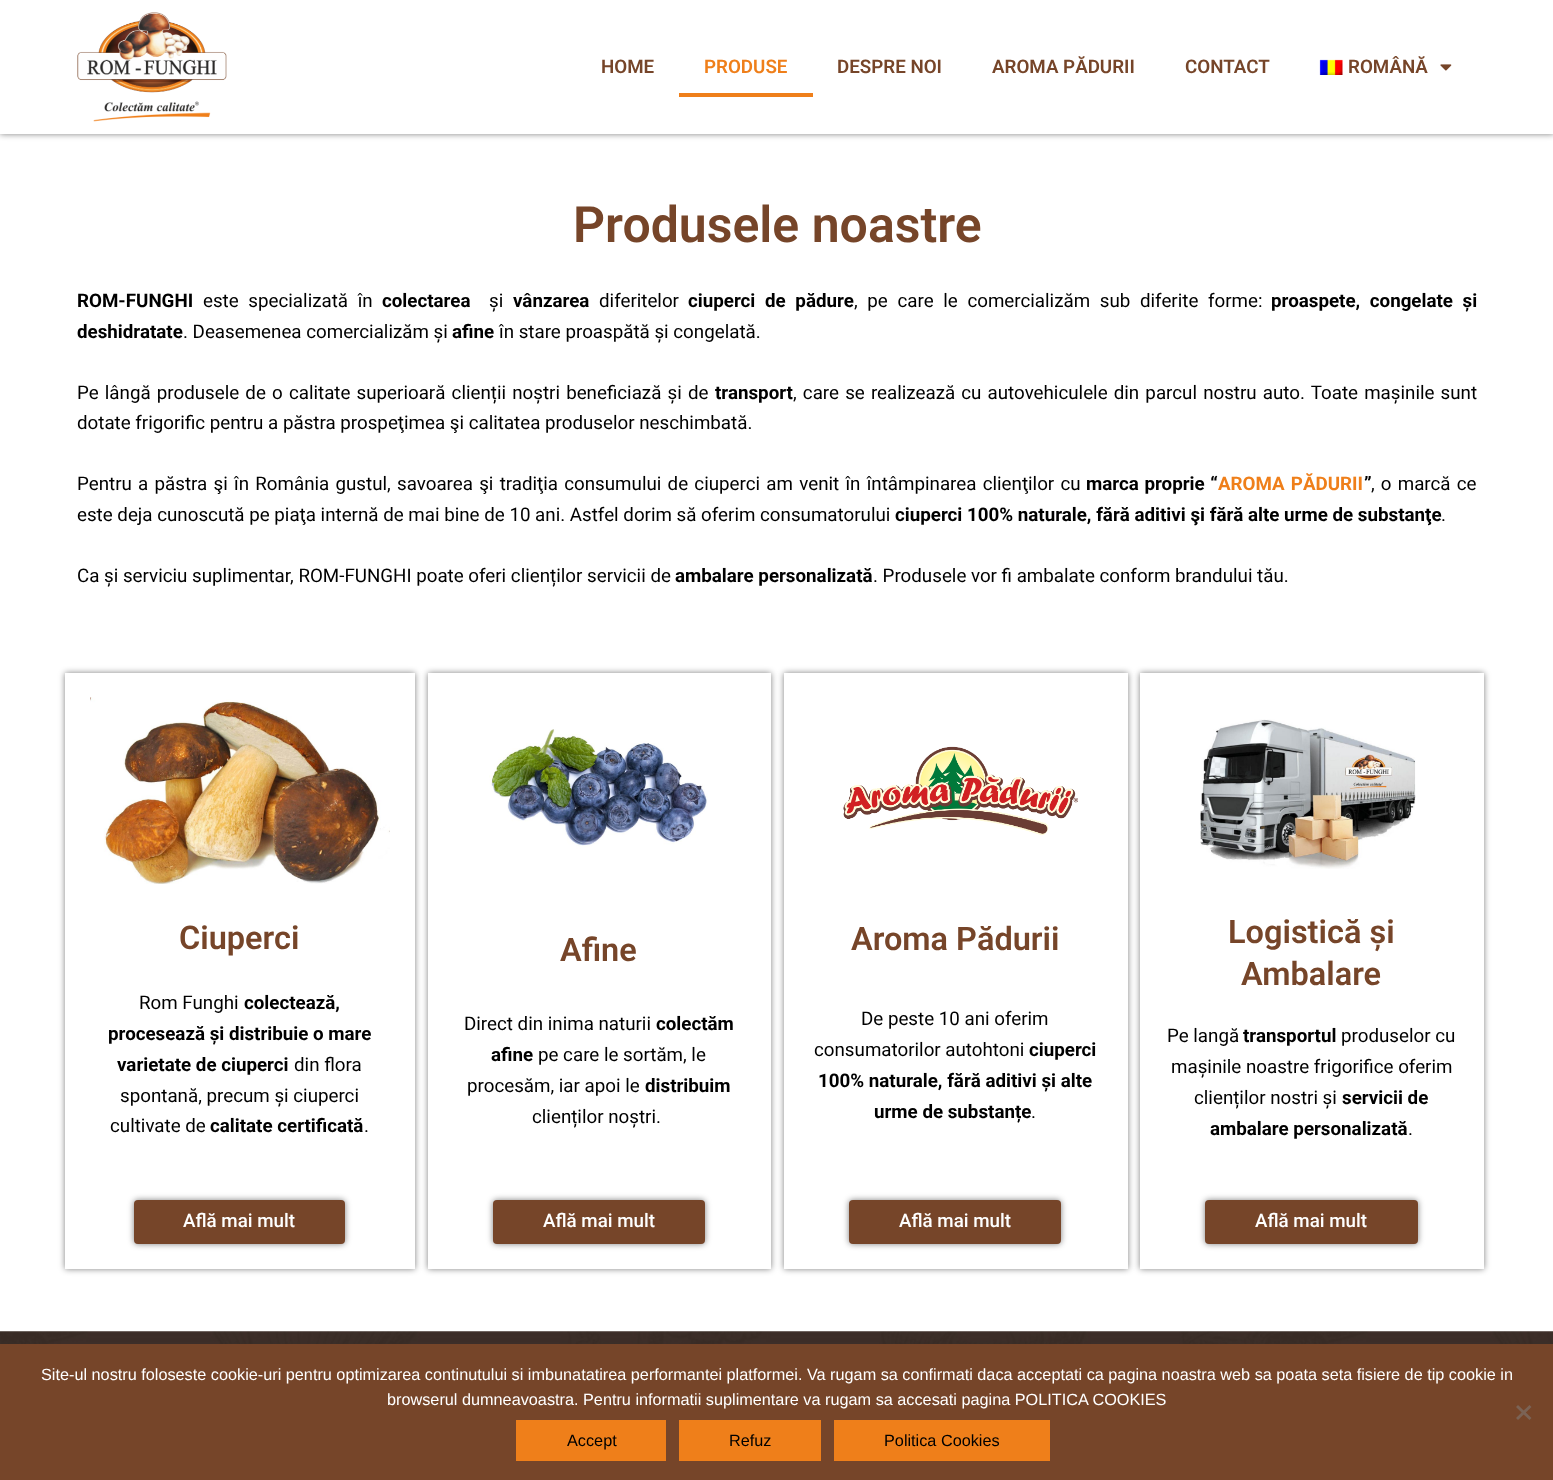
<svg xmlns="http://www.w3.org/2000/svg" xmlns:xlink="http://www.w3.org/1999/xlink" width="1553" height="1480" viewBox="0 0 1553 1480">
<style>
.cls-1{font:600 18.75px Roboto;fill:#764529}
.cls-2{font:600 18.75px Roboto;fill:#ef7f1a}
.cls-3{font:600 50px Roboto;fill:#764529}
.cls-4{font:bold 18.75px Roboto;fill:#000000}
.cls-5{font:18.75px Roboto;fill:#000000}
.cls-6{font:bold 18.75px Roboto;fill:#ef7f1a}
.cls-7{font:600 32.5px Roboto;fill:#764529}
.cls-8{font:500 18.75px Roboto;fill:#ffffff}
.cls-9{font:16.25px Liberation Sans;fill:#ffffff}
.cls-10{font:16.25px Liberation Sans;fill:#000000}
</style>
<defs>
<clipPath id="clip1"><path d="M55 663H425V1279H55ZM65 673H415V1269H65Z" clip-rule="evenodd"/></clipPath>
<clipPath id="clip2"><path d="M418 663H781V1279H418ZM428 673H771V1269H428Z" clip-rule="evenodd"/></clipPath>
<clipPath id="clip3"><path d="M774 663H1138V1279H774ZM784 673H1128V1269H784Z" clip-rule="evenodd"/></clipPath>
<clipPath id="clip4"><path d="M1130 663H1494V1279H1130ZM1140 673H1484V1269H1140Z" clip-rule="evenodd"/></clipPath>
</defs>
<rect width="100%" height="100%" fill="#ffffff"/>
<rect fill="#000000" fill-opacity="0.5" filter="blur(3px)" x="0" y="0" width="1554" height="134"/>
<rect fill="#ffffff" x="0" y="0" width="1553" height="134"/>
<image xlink:href="image0.png" x="77" y="12" width="150" height="110"/>
<rect fill="#ef7f1a" x="679" y="93" width="134" height="4"/>
<image xlink:href="image1.png" x="1319" y="59" width="24" height="16"/>
<image xlink:href="image2.png" x="1440" y="64" width="12" height="7"/>
<g clip-path="url(#clip1)">
<rect fill="#000000" fill-opacity="0.5" filter="blur(3px)" x="65" y="673" width="350" height="596"/>
</g>
<image xlink:href="image3.png" x="90" y="697" width="300" height="187"/>
<rect fill="#000000" fill-opacity="0.5" filter="blur(3px)" x="134" y="1200" width="211" height="44" rx="4"/>
<rect fill="#764529" x="134" y="1200" width="211" height="44" rx="4"/>
<g clip-path="url(#clip2)">
<rect fill="#000000" fill-opacity="0.5" filter="blur(3px)" x="428" y="673" width="343" height="596"/>
</g>
<image xlink:href="image4.png" x="489" y="729" width="219" height="120"/>
<rect fill="#000000" fill-opacity="0.5" filter="blur(3px)" x="493" y="1200" width="212" height="44" rx="4"/>
<rect fill="#764529" x="493" y="1200" width="212" height="44" rx="4"/>
<g clip-path="url(#clip3)">
<rect fill="#000000" fill-opacity="0.5" filter="blur(3px)" x="784" y="673" width="344" height="596"/>
</g>
<image xlink:href="image5.png" x="843" y="746" width="235" height="90"/>
<rect fill="#000000" fill-opacity="0.5" filter="blur(3px)" x="849" y="1200" width="212" height="44" rx="4"/>
<rect fill="#764529" x="849" y="1200" width="212" height="44" rx="4"/>
<g clip-path="url(#clip4)">
<rect fill="#000000" fill-opacity="0.5" filter="blur(3px)" x="1140" y="673" width="344" height="596"/>
</g>
<image xlink:href="image6.png" x="1200" y="719" width="216" height="150"/>
<rect fill="#000000" fill-opacity="0.5" filter="blur(3px)" x="1205" y="1200" width="213" height="44" rx="4"/>
<rect fill="#764529" x="1205" y="1200" width="213" height="44" rx="4"/>
<image xlink:href="image7.png" x="0" y="1331" width="1553" height="13"/>
<rect fill="#764529" x="0" y="1344" width="1553" height="136"/>
<path fill="#7b6355" d="M1529.5 1405L1531.5 1407L1518 1420L1516 1418Z"/>
<path fill="#7b6355" d="M1516 1407L1518 1405L1531.5 1418L1529.5 1420Z"/>
<rect fill="#ef7f1a" x="516" y="1420" width="150" height="41"/>
<rect fill="#ef7f1a" x="679" y="1420" width="142" height="41"/>
<rect fill="#ef7f1a" x="834" y="1420" width="216" height="41"/>
<text class="cls-1" x="601" y="73">HOME</text>
<text class="cls-2" x="704" y="73">PRODUSE</text>
<text class="cls-1" x="837" y="73">DESPRE NOI</text>
<text class="cls-1" x="992" y="73">AROMA PĂDURII</text>
<text class="cls-1" x="1185" y="73">CONTACT</text>
<text class="cls-1" x="1348" y="73">ROMÂNĂ</text>
<text class="cls-3" x="573" y="242">Produsele noastre</text>
<text class="cls-4" x="77" y="307">ROM-FUNGHI</text>
<text class="cls-5" x="203" y="307" word-spacing="5">este specializată în</text>
<text class="cls-4" x="382" y="307">colectarea</text>
<text class="cls-5" x="489" y="307">și</text>
<text class="cls-4" x="513" y="307">vânzarea</text>
<text class="cls-5" x="599" y="307">diferitelor</text>
<text class="cls-4" x="688" y="307" word-spacing="5">ciuperci de pădure</text>
<text class="cls-5" x="854" y="307" word-spacing="5">, pe care le comercializăm sub diferite forme:</text>
<text class="cls-4" x="1271" y="307" word-spacing="5">proaspete, congelate și</text>
<text class="cls-4" x="77" y="338">deshidratate</text>
<text class="cls-5" x="183" y="338">. Deasemenea comercializăm și</text>
<text class="cls-4" x="452" y="338">afine</text>
<text class="cls-5" x="499" y="338">în stare proaspătă și congelată.</text>
<text class="cls-5" x="77" y="399" word-spacing="1.5">Pe lângă produsele de o calitate superioară clienții noștri beneficiază și de</text>
<text class="cls-4" x="715" y="399">transport</text>
<text class="cls-5" x="793" y="399" word-spacing="1.5">, care se realizează cu autovehiculele din parcul nostru auto. Toate mașinile sunt</text>
<text class="cls-5" x="77" y="429">dotate frigorific pentru a păstra prospeţimea şi calitatea produselor neschimbată.</text>
<text class="cls-5" x="77" y="490" word-spacing="1.6">Pentru a păstra şi în România gustul, savoarea şi tradiţia consumului de ciuperci am venit în întâmpinarea clienţilor cu</text>
<text class="cls-4" x="1086" y="490" word-spacing="1">marca proprie “</text>
<text class="cls-6" x="1218" y="490" word-spacing="1.5">AROMA PĂDURII</text>
<text class="cls-4" x="1364" y="490">”</text>
<text class="cls-5" x="1371" y="490" word-spacing="1.5">, o marcă ce</text>
<text class="cls-5" x="77" y="521">este deja cunoscută pe piaţa internă de mai bine de 10 ani. Astfel dorim să oferim consumatorului</text>
<text class="cls-4" x="895" y="521">ciuperci 100% naturale, fără aditivi şi fără alte urme de substanţe</text>
<text class="cls-5" x="1441" y="521">.</text>
<text class="cls-5" x="77" y="582">Ca și serviciu suplimentar, ROM-FUNGHI poate oferi clienților servicii de</text>
<text class="cls-4" x="675" y="582">ambalare personalizată</text>
<text class="cls-5" x="873" y="582">. Produsele vor fi ambalate conform brandului tău.</text>
<text class="cls-7" x="179" y="949">Ciuperci</text>
<text class="cls-5" x="139" y="1009">Rom Funghi</text>
<text class="cls-4" x="244" y="1009">colectează,</text>
<text class="cls-4" x="108" y="1040">procesează și distribuie o mare</text>
<text class="cls-4" x="117" y="1071">varietate de ciuperci</text>
<text class="cls-5" x="294" y="1071">din flora</text>
<text class="cls-5" x="120" y="1102">spontană, precum și ciuperci</text>
<text class="cls-5" x="110" y="1132">cultivate de</text>
<text class="cls-4" x="210" y="1132">calitate certificată</text>
<text class="cls-5" x="364" y="1132">.</text>
<text class="cls-8" x="183" y="1227">Află mai mult</text>
<text class="cls-7" x="560" y="961">Afine</text>
<text class="cls-5" x="464" y="1030">Direct din inima naturii</text>
<text class="cls-4" x="656" y="1030">colectăm</text>
<text class="cls-4" x="491" y="1061">afine</text>
<text class="cls-5" x="538" y="1061">pe care le sortăm, le</text>
<text class="cls-5" x="467" y="1092">procesăm, iar apoi le</text>
<text class="cls-4" x="645" y="1092">distribuim</text>
<text class="cls-5" x="532" y="1123">clienților noștri.</text>
<text class="cls-8" x="543" y="1227">Află mai mult</text>
<text class="cls-7" x="851" y="950">Aroma Pădurii</text>
<text class="cls-5" x="861" y="1025">De peste 10 ani oferim</text>
<text class="cls-5" x="814" y="1056">consumatorilor autohtoni</text>
<text class="cls-4" x="1029" y="1056">ciuperci</text>
<text class="cls-4" x="818" y="1087">100% naturale, fără aditivi și alte</text>
<text class="cls-4" x="874" y="1118">urme de substanțe</text>
<text class="cls-5" x="1031" y="1118">.</text>
<text class="cls-8" x="899" y="1227">Află mai mult</text>
<text class="cls-7" x="1228" y="943">Logistică și</text>
<text class="cls-7" x="1241" y="985">Ambalare</text>
<text class="cls-5" x="1167" y="1042">Pe langă</text>
<text class="cls-4" x="1243" y="1042">transportul</text>
<text class="cls-5" x="1341" y="1042">produselor cu</text>
<text class="cls-5" x="1171" y="1073">mașinile noastre frigorifice oferim</text>
<text class="cls-5" x="1194" y="1104">clienților nostri și</text>
<text class="cls-4" x="1342" y="1104">servicii de</text>
<text class="cls-4" x="1210" y="1135">ambalare personalizată</text>
<text class="cls-5" x="1408" y="1135">.</text>
<text class="cls-8" x="1255" y="1227">Află mai mult</text>
<text class="cls-9" x="41" y="1380">Site-ul nostru foloseste cookie-uri pentru optimizarea continutului si imbunatatirea performantei platformei. Va rugam sa confirmati daca acceptati ca pagina noastra web sa poata seta fisiere de tip cookie in</text>
<text class="cls-9" x="387" y="1405">browserul dumneavoastra. Pentru informatii suplimentare va rugam sa accesati pagina POLITICA COOKIES</text>
<text class="cls-10" x="567" y="1446">Accept</text>
<text class="cls-10" x="729" y="1446">Refuz</text>
<text class="cls-10" x="884" y="1446">Politica Cookies</text>
</svg>
